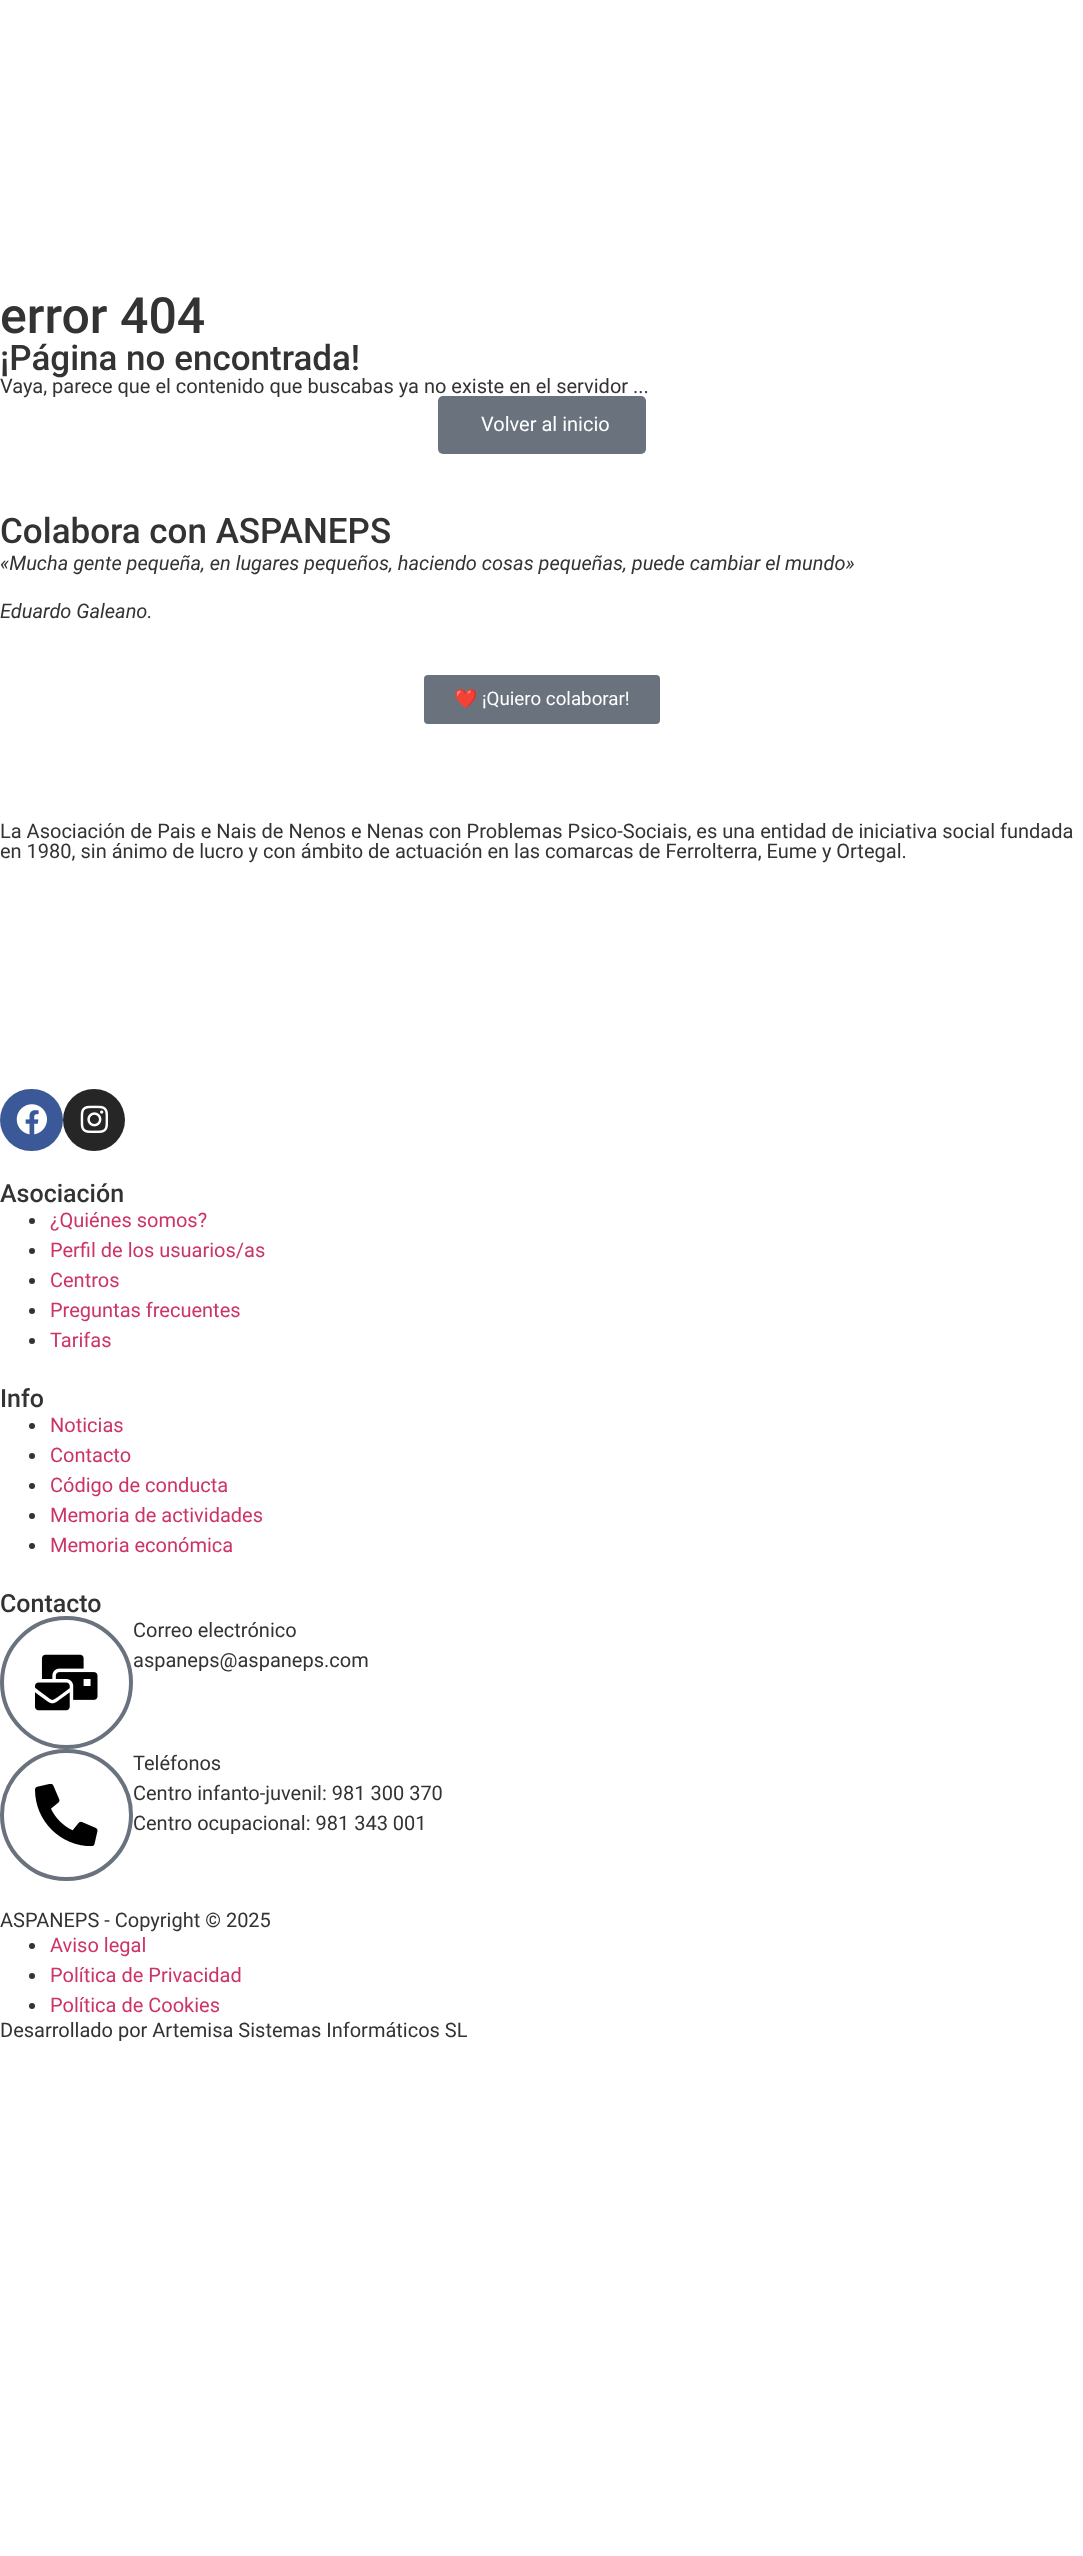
<svg xmlns="http://www.w3.org/2000/svg" xmlns:xlink="http://www.w3.org/1999/xlink" width="1083" height="2556" viewBox="0 0 1083 2556">
<style>
.cls-1{font:500 50px Roboto;fill:#333333}
.cls-2{font:500 35px Roboto;fill:#333333}
.cls-3{font:20px Roboto;fill:#333333}
.cls-4{font:20px Roboto;fill:#ffffff}
.cls-5{font:italic 20px Roboto;fill:#333333}
.cls-6{font:18.75px Noto Color Emoji;fill:#ffffff}
.cls-7{font:18.75px Roboto;fill:#ffffff}
.cls-8{font:500 25px Roboto;fill:#333333}
.cls-9{font:20px Roboto;fill:#cc3366}
</style>
<rect width="100%" height="100%" fill="#ffffff"/>
<rect fill="#69727d" x="424" y="675" width="236" height="49" rx="4"/>
<rect fill="#3b5998" x="0" y="1089" width="63" height="62" rx="31"/>
<image xlink:href="image0.png" x="16" y="1104" width="31" height="31"/>
<circle fill="#262626" cx="94" cy="1120" r="31"/>
<image xlink:href="image1.png" x="80" y="1105" width="29" height="29"/>
<circle fill="#333333" cx="32" cy="1221" r="3"/>
<circle fill="#333333" cx="32" cy="1251" r="3"/>
<circle fill="#333333" cx="32" cy="1281" r="3"/>
<circle fill="#333333" cx="32" cy="1311" r="3"/>
<circle fill="#333333" cx="32" cy="1341" r="3"/>
<circle fill="#333333" cx="32" cy="1426" r="3"/>
<circle fill="#333333" cx="32" cy="1456" r="3"/>
<circle fill="#333333" cx="32" cy="1486" r="3"/>
<circle fill="#333333" cx="32" cy="1516" r="3"/>
<circle fill="#333333" cx="32" cy="1546" r="3"/>
<circle fill="none" stroke="#69727d" stroke-width="4" cx="66.5" cy="1682.5" r="64.5"/>
<image xlink:href="image2.png" x="35" y="1654" width="63" height="57"/>
<rect fill="none" stroke="#69727d" stroke-width="4" x="2" y="1751" width="129" height="128" rx="64"/>
<image xlink:href="image3.png" x="35" y="1784" width="63" height="62"/>
<circle fill="#333333" cx="32" cy="1946" r="3"/>
<circle fill="#333333" cx="32" cy="1976" r="3"/>
<circle fill="#333333" cx="32" cy="2006" r="3"/>
<text class="cls-1" x="0" y="333">error 404</text>
<text class="cls-2" x="0" y="370">¡Página no encontrada!</text>
<text class="cls-3" x="0" y="393">Vaya, parece que el contenido que buscabas ya no existe en el servidor ...</text>
<rect fill="#69727d" x="438" y="396" width="208" height="58" rx="5"/>
<text class="cls-4" x="481" y="431">Volver al inicio</text>
<text class="cls-2" x="0" y="543">Colabora con ASPANEPS</text>
<text class="cls-5" x="0" y="570">«Mucha gente pequeña, en lugares pequeños, haciendo cosas pequeñas, puede cambiar el mundo»</text>
<text class="cls-5" x="0" y="618">Eduardo Galeano.</text>
<text class="cls-6" x="454" y="705">❤️</text>
<text class="cls-7" x="482" y="705">¡Quiero colaborar!</text>
<text class="cls-3"><tspan x="0" y="838">La Asociación de Pais e Nais de Nenos e Nenas con Problemas Psico-Sociais, es una entidad de iniciativa social fundada</tspan><tspan x="0" y="858">en 1980, sin ánimo de lucro y con ámbito de actuación en las comarcas de Ferrolterra, Eume y Ortegal.</tspan></text>
<text class="cls-8" x="0" y="1202">Asociación</text>
<text class="cls-9"><tspan x="50" y="1227">¿Quiénes somos?</tspan><tspan x="50" y="1257">Perfil de los usuarios/as</tspan><tspan x="50" y="1287">Centros</tspan><tspan x="50" y="1317">Preguntas frecuentes</tspan><tspan x="50" y="1347">Tarifas</tspan></text>
<text class="cls-8" x="0" y="1407">Info</text>
<text class="cls-9"><tspan x="50" y="1432">Noticias</tspan><tspan x="50" y="1462">Contacto</tspan><tspan x="50" y="1492">Código de conducta</tspan><tspan x="50" y="1522">Memoria de actividades</tspan><tspan x="50" y="1552">Memoria económica</tspan></text>
<text class="cls-8" x="0" y="1612">Contacto</text>
<text class="cls-3"><tspan x="133" y="1637">Correo electrónico</tspan><tspan x="133" y="1667">aspaneps@aspaneps.com</tspan></text>
<text class="cls-3"><tspan x="133" y="1770">Teléfonos</tspan><tspan x="133" y="1800">Centro infanto-juvenil: 981 300 370</tspan><tspan x="133" y="1830">Centro ocupacional: 981 343 001</tspan></text>
<text class="cls-3" x="0" y="1927">ASPANEPS - Copyright © 2025</text>
<text class="cls-9"><tspan x="50" y="1952">Aviso legal</tspan><tspan x="50" y="1982">Política de Privacidad</tspan><tspan x="50" y="2012">Política de Cookies</tspan></text>
<text class="cls-3" x="0" y="2037">Desarrollado por Artemisa Sistemas Informáticos SL</text>
</svg>
